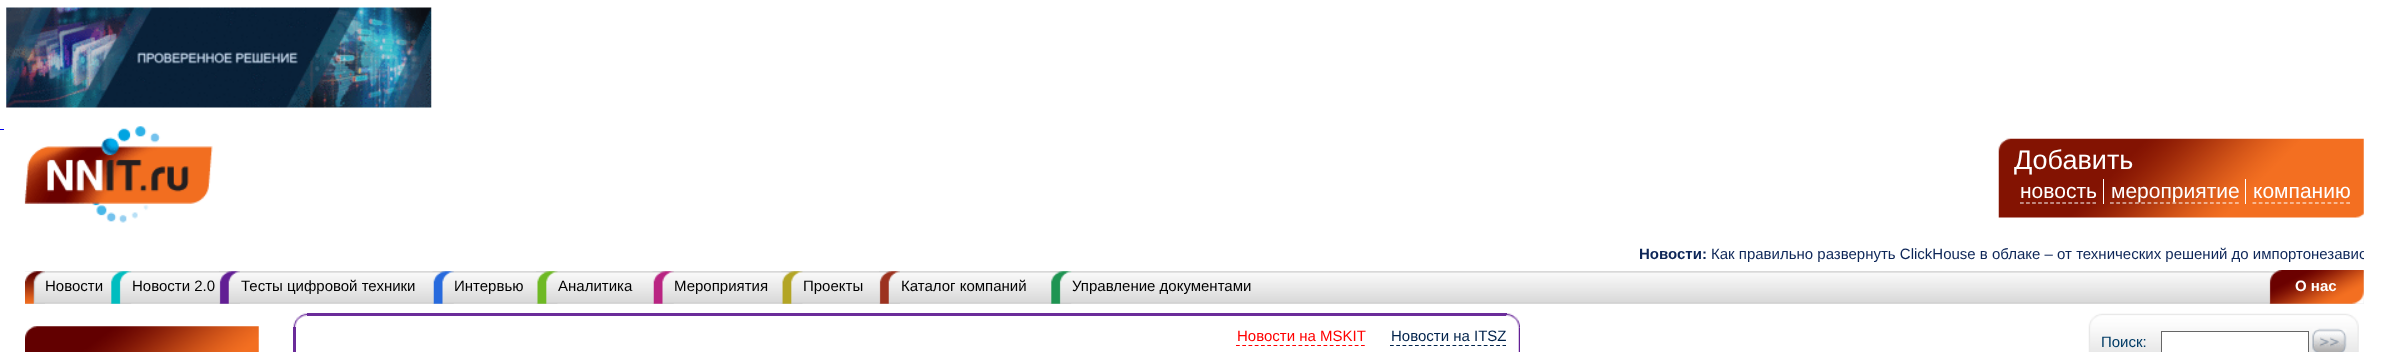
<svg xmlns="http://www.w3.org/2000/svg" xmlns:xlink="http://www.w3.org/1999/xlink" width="2382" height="352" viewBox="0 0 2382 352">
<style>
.cls-1{font:27px Liberation Sans;fill:#ffffff}
.cls-2{font:21px Liberation Sans;fill:#ffffff}
.cls-3{font:bold 15px Liberation Sans;fill:#0d2658}
.cls-4{font:15px Liberation Sans;fill:#0d2658}
.cls-5{font:15px Liberation Sans;fill:#000000}
.cls-6{font:bold 15px Liberation Sans;fill:#ffffff}
.cls-7{font:15px Liberation Sans;fill:#ff0000}
.cls-8{font:15px Liberation Sans;fill:#00224b}
.cls-9{font:15px Liberation Sans;fill:#003b65}
</style>
<defs>
<clipPath id="clip1"><rect x="25" y="245" width="2339" height="25"/></clipPath>
</defs>
<rect width="100%" height="100%" fill="#ffffff"/>
<image xlink:href="image0.png" x="6" y="7" width="426" height="101"/>
<image xlink:href="image1.png" x="24" y="126" width="189" height="97"/>
<rect fill="#0000ee" x="0" y="129" width="4" height="1"/>
<image xlink:href="image2.png" x="1998" y="138" width="366" height="80"/>
<rect fill="#ffffff" x="2103" y="179" width="1" height="25"/>
<path fill="none" stroke="#ffffff" stroke-width="1.2" stroke-dasharray="3.75 2.29" d="M2020 203H2096"/>
<rect fill="#ffffff" x="2245" y="179" width="1" height="25"/>
<path fill="none" stroke="#ffffff" stroke-width="1.2" stroke-dasharray="3.75 2.5" d="M2110 203H2239"/>
<path fill="none" stroke="#ffffff" stroke-width="1.2" stroke-dasharray="3.75 2.5" d="M2252.5 203H2350"/>
<image xlink:href="image3.png" x="25" y="271" width="2339" height="33"/>
<image xlink:href="image4.png" x="25" y="271" width="20" height="33"/>
<image xlink:href="image5.png" x="110" y="271" width="22" height="33"/>
<image xlink:href="image6.png" x="219" y="271" width="21" height="33"/>
<image xlink:href="image7.png" x="432" y="271" width="22" height="33"/>
<image xlink:href="image8.png" x="536" y="271" width="22" height="33"/>
<image xlink:href="image9.png" x="652" y="271" width="22" height="33"/>
<image xlink:href="image10.png" x="781" y="271" width="22" height="33"/>
<image xlink:href="image11.png" x="879" y="271" width="21" height="33"/>
<image xlink:href="image12.png" x="1050" y="271" width="22" height="33"/>
<image xlink:href="image13.png" x="2269" y="270" width="95" height="34"/>
<image xlink:href="image14.png" x="25" y="326" width="234" height="26"/>
<image xlink:href="image15.png" x="293" y="313" width="15" height="15"/>
<rect fill="#6b2c9a" x="307" y="313" width="1200" height="3"/>
<image xlink:href="image16.png" x="1506" y="313" width="14" height="15"/>
<rect fill="#611e93" fill-opacity="0.94" x="293" y="327" width="3" height="25"/>
<path fill="none" stroke="#ff0000" stroke-width="1.2" stroke-dasharray="3.75 2.5" d="M1236 345.5H1365"/>
<path fill="none" stroke="#00224b" stroke-width="1.2" stroke-dasharray="3.75 2.5" d="M1390 345.5H1506"/>
<image xlink:href="image17.png" x="1518" y="327" width="2" height="25"/>
<image xlink:href="image18.png" x="2088" y="313" width="271" height="39"/>
<rect fill="#ffffff" stroke="#666666" x="2161.5" y="331.5" width="147" height="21"/>
<image xlink:href="image19.png" x="2312" y="328" width="35" height="24"/>
<text class="cls-1" x="2014" y="169">Добавить</text>
<text class="cls-2" x="2020" y="198">новость</text>
<text class="cls-2" x="2111" y="198">мероприятие</text>
<text class="cls-2" x="2253" y="198">компанию</text>
<text class="cls-3" x="1639" y="259">Новости:</text>
<g clip-path="url(#clip1)">
<text class="cls-4" x="1711" y="259">Как правильно развернуть ClickHouse в облаке – от технических решений до импортонезавис</text>
</g>
<text class="cls-5" x="45" y="291">Новости</text>
<text class="cls-5" x="132" y="291">Новости 2.0</text>
<text class="cls-5" x="241" y="291">Тесты цифровой техники</text>
<text class="cls-5" x="454" y="291">Интервью</text>
<text class="cls-5" x="558" y="291">Аналитика</text>
<text class="cls-5" x="674" y="291">Мероприятия</text>
<text class="cls-5" x="803" y="291">Проекты</text>
<text class="cls-5" x="901" y="291">Каталог компаний</text>
<text class="cls-5" x="1072" y="291">Управление документами</text>
<text class="cls-6" x="2295" y="291">О нас</text>
<text class="cls-7" x="1237" y="341">Новости на MSKIT</text>
<text class="cls-8" x="1391" y="341">Новости на ITSZ</text>
<text class="cls-9" x="2101" y="347">Поиск:</text>
</svg>
